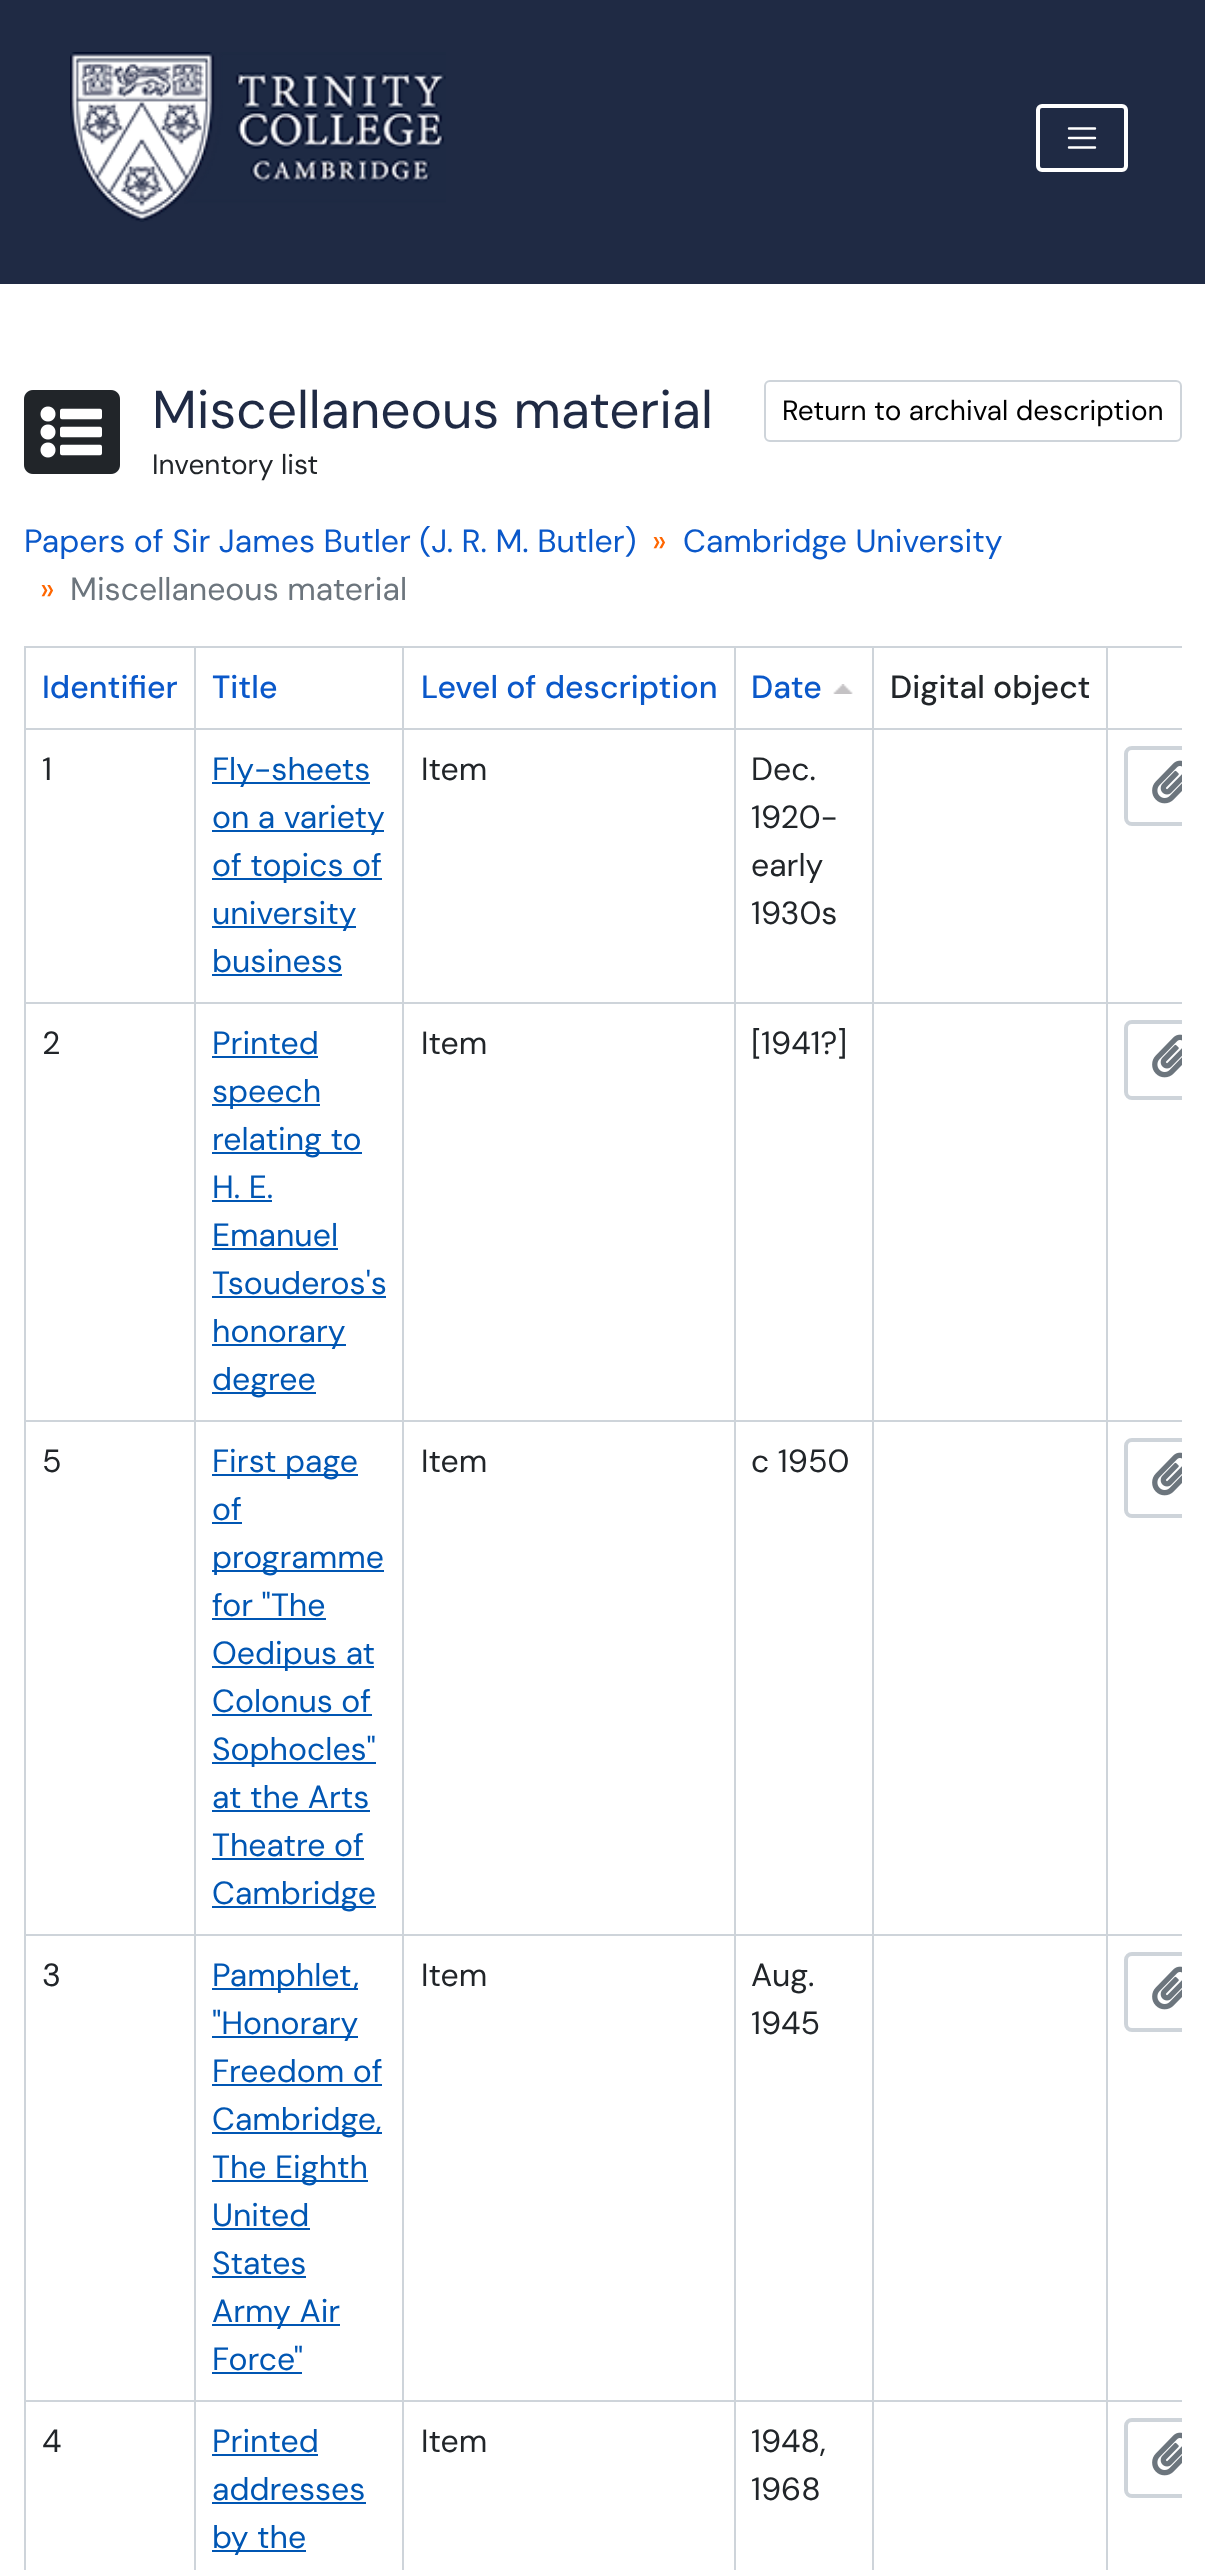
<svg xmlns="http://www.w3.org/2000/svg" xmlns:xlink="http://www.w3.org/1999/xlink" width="1205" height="2570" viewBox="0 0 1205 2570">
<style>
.cls-1{font:53.25px DM Sans;fill:#1f2a44}
.cls-2{font:28px DM Sans;fill:#212529}
.cls-3{font:28px DM Sans;fill:#000000}
.cls-4{font:32px DM Sans;fill:#0a58ca}
.cls-5{font:32px DM Sans;fill:#ff6600}
.cls-6{font:32px DM Sans;fill:#6c757d}
.cls-7{font:500 32px DM Sans;fill:#0a58ca}
.cls-8{font:500 32px DM Sans;fill:#212529}
.cls-9{font:32px DM Sans;fill:#212529}
.cls-10{font:32px DM Sans;fill:#0056b3}
</style>
<defs>
<clipPath id="clip1"><rect x="24" y="646" width="1158" height="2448"/></clipPath>
</defs>
<rect width="100%" height="100%" fill="#ffffff"/>
<rect fill="#1f2a44" x="0" y="0" width="1205" height="20"/>
<rect fill="#1f2a44" x="0" y="20" width="1205" height="264"/>
<image xlink:href="image0.png" x="70" y="52" width="376" height="170"/>
<rect fill="none" stroke="#ffffff" stroke-width="4" x="1038" y="106" width="88" height="64" rx="4"/>
<path fill="none" stroke="#ffffff" stroke-width="2.4" stroke-linecap="round" d="M1069 128.5H1095M1069 138H1095M1069 147.5H1095"/>
<image xlink:href="image1.png" x="24" y="390" width="96" height="84"/>
<rect fill="none" stroke="#ced4da" stroke-width="2" x="765" y="381" width="416" height="60" rx="5"/>
<rect fill="#ced4da" x="24" y="646" width="1158" height="2"/>
<image xlink:href="image2.png" x="833" y="684" width="20" height="10"/>
<rect fill="#ced4da" x="24" y="728" width="1158" height="2"/>
<rect fill="#0056b3" x="212" y="782" width="158" height="2"/>
<rect fill="#0056b3" x="212" y="830" width="172" height="2"/>
<rect fill="#0056b3" x="212" y="878" width="170" height="2"/>
<rect fill="#0056b3" x="212" y="926" width="144" height="2"/>
<rect fill="#0056b3" x="212" y="974" width="130" height="2"/>
<g clip-path="url(#clip1)">
<rect fill="none" stroke="#ced4da" stroke-width="4" x="1126" y="748" width="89" height="76" rx="6"/>
</g>
<image xlink:href="image3.png" x="1152" y="760" width="30" height="44"/>
<rect fill="#ced4da" x="24" y="1002" width="1158" height="2"/>
<rect fill="#0056b3" x="212" y="1056" width="106" height="2"/>
<rect fill="#0056b3" x="212" y="1104" width="108" height="2"/>
<rect fill="#0056b3" x="212" y="1152" width="150" height="2"/>
<rect fill="#0056b3" x="212" y="1200" width="60" height="2"/>
<rect fill="#0056b3" x="212" y="1248" width="126" height="2"/>
<rect fill="#0056b3" x="212" y="1296" width="174" height="2"/>
<rect fill="#0056b3" x="212" y="1344" width="134" height="2"/>
<rect fill="#0056b3" x="212" y="1392" width="104" height="2"/>
<g clip-path="url(#clip1)">
<rect fill="none" stroke="#ced4da" stroke-width="4" x="1126" y="1022" width="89" height="76" rx="6"/>
</g>
<image xlink:href="image3.png" x="1152" y="1034" width="30" height="44"/>
<rect fill="#ced4da" x="24" y="1420" width="1158" height="2"/>
<rect fill="#0056b3" x="212" y="1474" width="146" height="2"/>
<rect fill="#0056b3" x="212" y="1522" width="30" height="2"/>
<rect fill="#0056b3" x="212" y="1570" width="172" height="2"/>
<rect fill="#0056b3" x="212" y="1618" width="114" height="2"/>
<rect fill="#0056b3" x="212" y="1666" width="162" height="2"/>
<rect fill="#0056b3" x="212" y="1714" width="160" height="2"/>
<rect fill="#0056b3" x="212" y="1762" width="164" height="2"/>
<rect fill="#0056b3" x="212" y="1810" width="158" height="2"/>
<rect fill="#0056b3" x="212" y="1858" width="152" height="2"/>
<rect fill="#0056b3" x="212" y="1906" width="164" height="2"/>
<g clip-path="url(#clip1)">
<rect fill="none" stroke="#ced4da" stroke-width="4" x="1126" y="1440" width="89" height="76" rx="6"/>
</g>
<image xlink:href="image3.png" x="1152" y="1452" width="30" height="44"/>
<rect fill="#ced4da" x="24" y="1934" width="1158" height="2"/>
<rect fill="#0056b3" x="212" y="1988" width="146" height="2"/>
<rect fill="#0056b3" x="212" y="2036" width="146" height="2"/>
<rect fill="#0056b3" x="212" y="2084" width="170" height="2"/>
<rect fill="#0056b3" x="212" y="2132" width="170" height="2"/>
<rect fill="#0056b3" x="212" y="2180" width="156" height="2"/>
<rect fill="#0056b3" x="212" y="2228" width="98" height="2"/>
<rect fill="#0056b3" x="212" y="2276" width="94" height="2"/>
<rect fill="#0056b3" x="212" y="2324" width="128" height="2"/>
<rect fill="#0056b3" x="212" y="2372" width="90" height="2"/>
<g clip-path="url(#clip1)">
<rect fill="none" stroke="#ced4da" stroke-width="4" x="1126" y="1954" width="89" height="76" rx="6"/>
</g>
<image xlink:href="image3.png" x="1152" y="1966" width="30" height="44"/>
<rect fill="#ced4da" x="24" y="2400" width="1158" height="2"/>
<rect fill="#ced4da" x="24" y="646" width="2" height="1924"/>
<rect fill="#ced4da" x="194" y="646" width="2" height="1924"/>
<rect fill="#0056b3" x="212" y="2454" width="106" height="2"/>
<rect fill="#0056b3" x="212" y="2502" width="154" height="2"/>
<rect fill="#0056b3" x="212" y="2550" width="94" height="2"/>
<rect fill="#ced4da" x="402" y="646" width="2" height="1924"/>
<rect fill="#ced4da" x="734" y="646" width="2" height="1924"/>
<rect fill="#ced4da" x="872" y="646" width="2" height="1924"/>
<rect fill="#ced4da" x="1106" y="646" width="2" height="1924"/>
<g clip-path="url(#clip1)">
<rect fill="none" stroke="#ced4da" stroke-width="4" x="1126" y="2420" width="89" height="76" rx="6"/>
</g>
<image xlink:href="image3.png" x="1152" y="2432" width="30" height="44"/>
<text class="cls-1" x="152" y="428">Miscellaneous material</text>
<text class="cls-2" x="152" y="474">Inventory list</text>
<text class="cls-3" x="782" y="420">Return to archival description</text>
<text class="cls-4" x="24" y="552">Papers of Sir James Butler (J. R. M. Butler)</text>
<text class="cls-5" x="652" y="552">»</text>
<text class="cls-4" x="683" y="552">Cambridge University</text>
<text class="cls-5" x="40" y="600">»</text>
<text class="cls-6" x="70" y="600">Miscellaneous material</text>
<text class="cls-7" x="42" y="698">Identifier</text>
<text class="cls-7" x="212" y="698">Title</text>
<text class="cls-7" x="421" y="698">Level of description</text>
<text class="cls-7" x="751" y="698">Date</text>
<text class="cls-8" x="890" y="698">Digital object</text>
<text class="cls-9" x="42" y="780">1</text>
<text class="cls-10"><tspan x="212" y="780">Fly-sheets</tspan><tspan x="212" y="828">on a variety</tspan><tspan x="212" y="876">of topics of</tspan><tspan x="212" y="924">university</tspan><tspan x="212" y="972">business</tspan></text>
<text class="cls-9" x="421" y="780">Item</text>
<text class="cls-9"><tspan x="751" y="780">Dec.</tspan><tspan x="751" y="828">1920-</tspan><tspan x="751" y="876">early</tspan><tspan x="751" y="924">1930s</tspan></text>
<text class="cls-9" x="42" y="1054">2</text>
<text class="cls-10"><tspan x="212" y="1054">Printed</tspan><tspan x="212" y="1102">speech</tspan><tspan x="212" y="1150">relating to</tspan><tspan x="212" y="1198">H. E.</tspan><tspan x="212" y="1246">Emanuel</tspan><tspan x="212" y="1294">Tsouderos's</tspan><tspan x="212" y="1342">honorary</tspan><tspan x="212" y="1390">degree</tspan></text>
<text class="cls-9" x="421" y="1054">Item</text>
<text class="cls-9" x="751" y="1054">[1941?]</text>
<text class="cls-9" x="42" y="1472">5</text>
<text class="cls-10"><tspan x="212" y="1472">First page</tspan><tspan x="212" y="1520">of</tspan><tspan x="212" y="1568">programme</tspan><tspan x="212" y="1616">for "The</tspan><tspan x="212" y="1664">Oedipus at</tspan><tspan x="212" y="1712">Colonus of</tspan><tspan x="212" y="1760">Sophocles"</tspan><tspan x="212" y="1808">at the Arts</tspan><tspan x="212" y="1856">Theatre of</tspan><tspan x="212" y="1904">Cambridge</tspan></text>
<text class="cls-9" x="421" y="1472">Item</text>
<text class="cls-9" x="751" y="1472">c 1950</text>
<text class="cls-9" x="42" y="1986">3</text>
<text class="cls-10"><tspan x="212" y="1986">Pamphlet,</tspan><tspan x="212" y="2034">"Honorary</tspan><tspan x="212" y="2082">Freedom of</tspan><tspan x="212" y="2130">Cambridge,</tspan><tspan x="212" y="2178">The Eighth</tspan><tspan x="212" y="2226">United</tspan><tspan x="212" y="2274">States</tspan><tspan x="212" y="2322">Army Air</tspan><tspan x="212" y="2370">Force"</tspan></text>
<text class="cls-9" x="421" y="1986">Item</text>
<text class="cls-9"><tspan x="751" y="1986">Aug.</tspan><tspan x="751" y="2034">1945</tspan></text>
<text class="cls-9" x="42" y="2452">4</text>
<text class="cls-10"><tspan x="212" y="2452">Printed</tspan><tspan x="212" y="2500">addresses</tspan><tspan x="212" y="2548">by the</tspan></text>
<text class="cls-9" x="421" y="2452">Item</text>
<text class="cls-9"><tspan x="751" y="2452">1948,</tspan><tspan x="751" y="2500">1968</tspan></text>
</svg>
